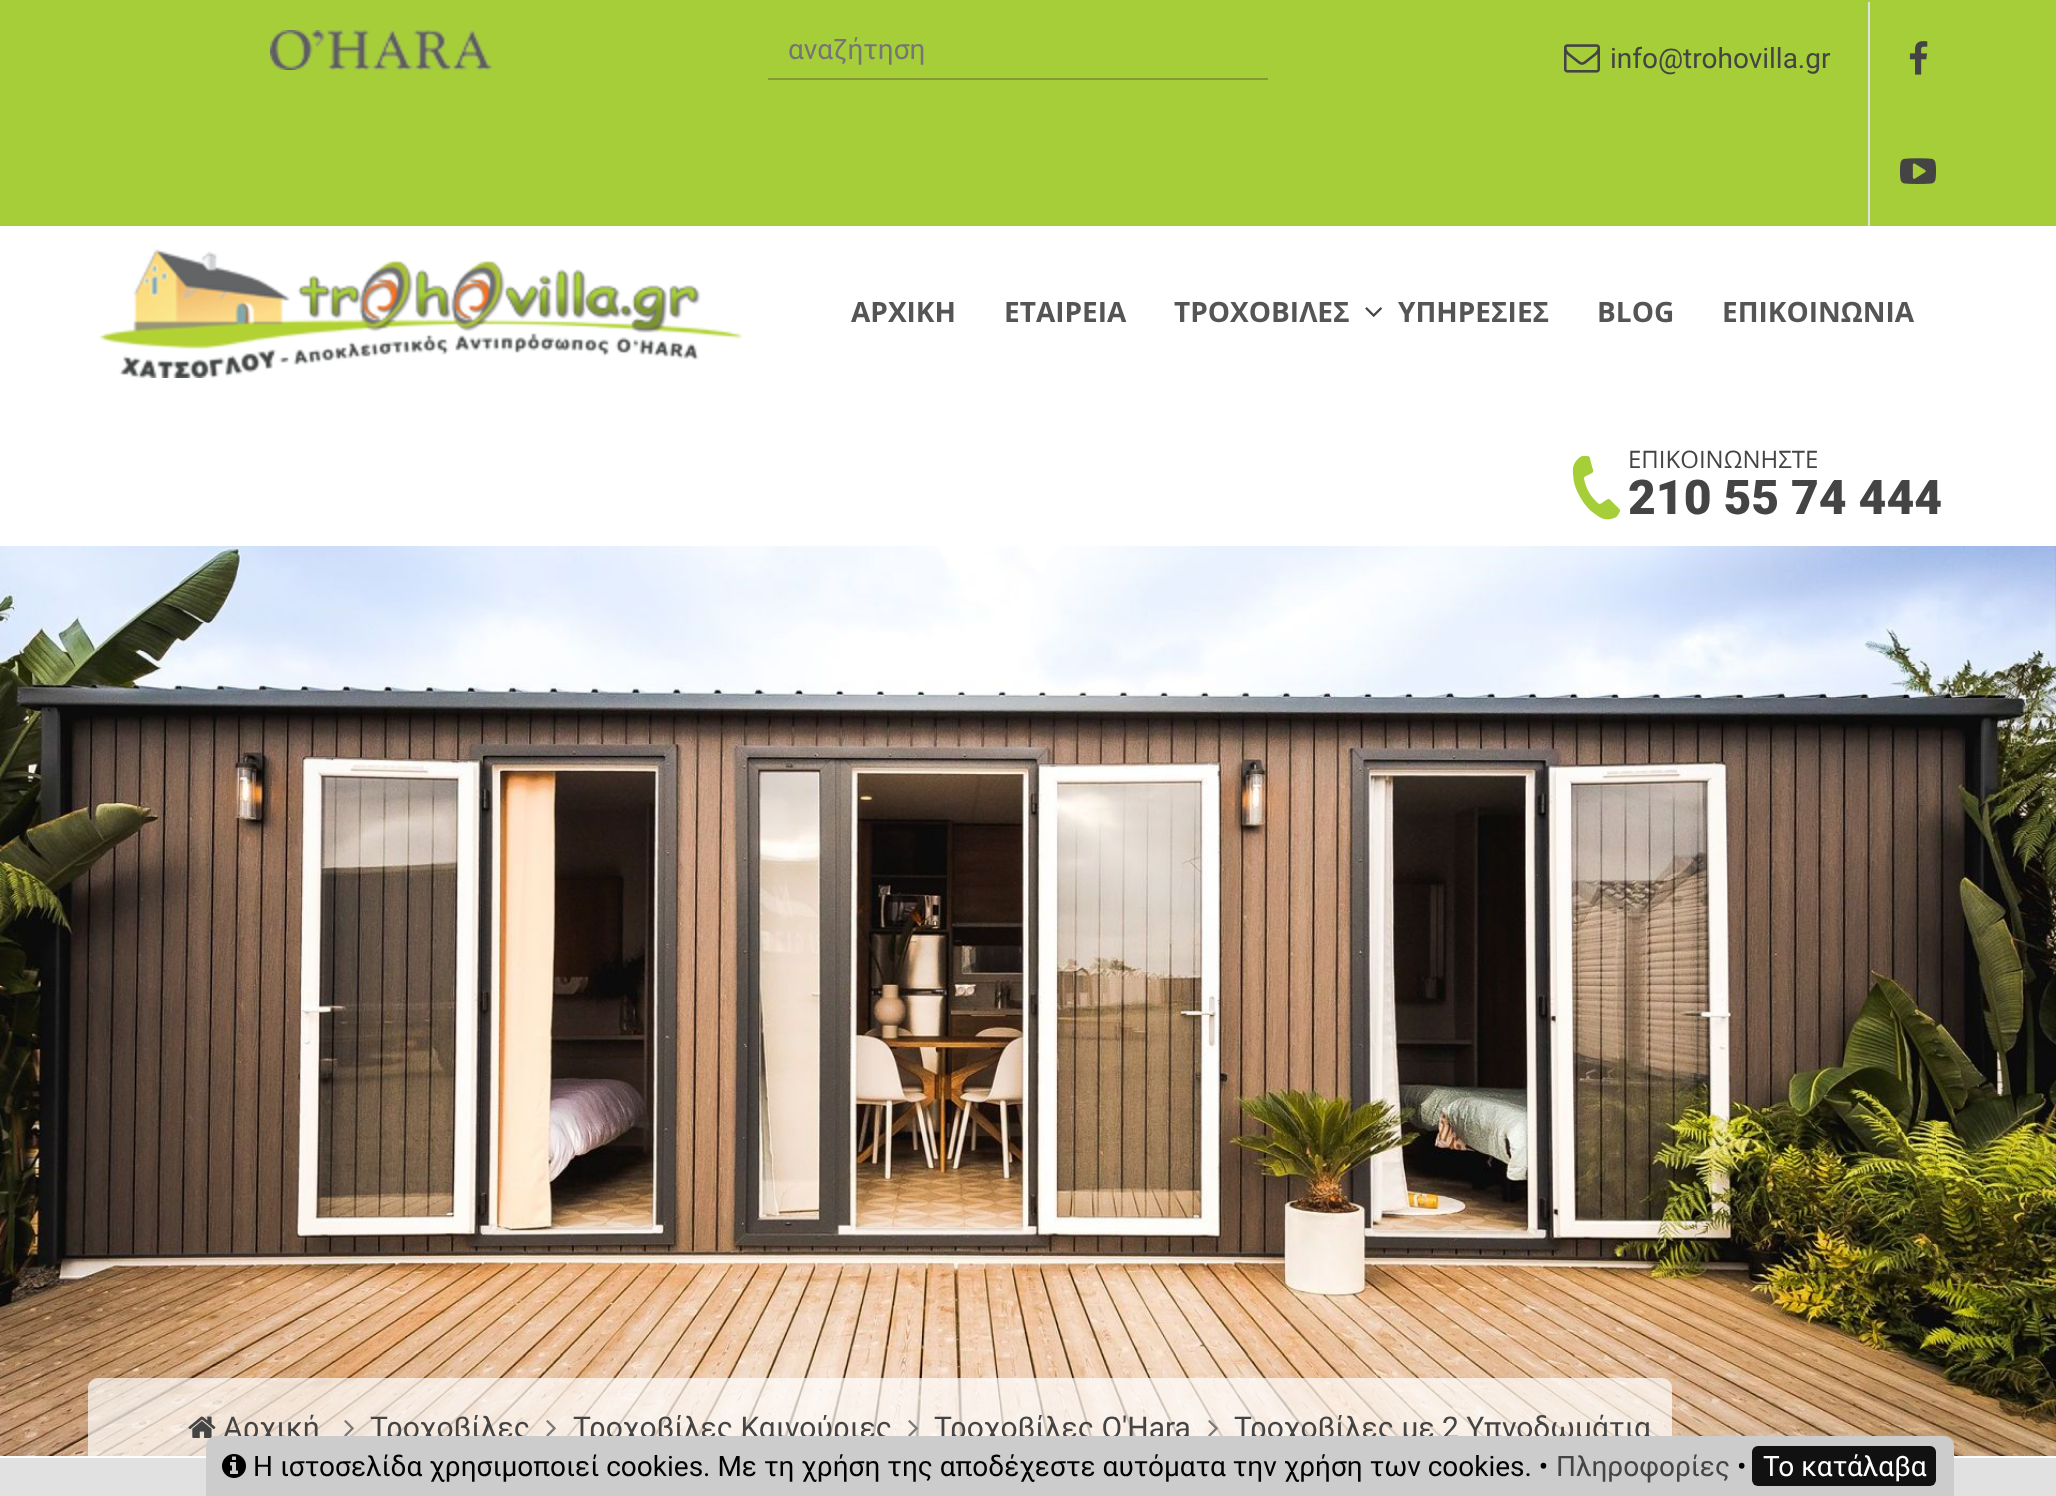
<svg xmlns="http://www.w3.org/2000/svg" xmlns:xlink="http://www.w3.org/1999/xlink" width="2056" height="1496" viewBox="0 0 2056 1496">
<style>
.cls-1{font:28px Roboto;fill:#757575}
.cls-2{font:28px Roboto;fill:#444444}
.cls-3{font:bold 28px Open Sans;fill:#555555}
.cls-4{font:24px Open Sans;fill:#444444}
.cls-5{font:900 48px Roboto;fill:#444444}
.cls-6{font:30px Roboto;fill:#444444}
.cls-7{font:28px Roboto;fill:#000000}
.cls-8{font:28px Roboto;fill:#ffffff}
</style>
<rect width="100%" height="100%" fill="#ffffff"/>
<rect fill="#a6ce39" x="0" y="0" width="2056" height="226"/>
<image xlink:href="image0.png" x="270" y="30" width="222" height="40"/>
<rect fill="#839b34" x="768" y="78" width="500" height="2"/>
<image xlink:href="image1.png" x="1564" y="44" width="36" height="29"/>
<rect fill="#dde2e8" x="1868" y="2" width="2" height="224"/>
<image xlink:href="image2.png" x="1909" y="41" width="19" height="34"/>
<image xlink:href="image3.png" x="1900" y="158" width="36" height="26"/>
<image xlink:href="image4.png" x="99" y="249" width="644" height="129"/>
<image xlink:href="image5.png" x="1365" y="307" width="17" height="10"/>
<image xlink:href="image6.png" x="1572" y="455" width="48" height="65"/>
<image xlink:href="image7.png" x="0" y="546" width="2056" height="910"/>
<path fill="#ffffff" fill-opacity="0.7" d="M98 1378H1662C1667.5 1378 1672 1382.5 1672 1388V1458H88V1388C88 1382.5 92.5 1378 98 1378Z"/>
<image xlink:href="image8.png" x="188" y="1416" width="28" height="22"/>
<image xlink:href="image9.png" x="344" y="1420" width="10" height="16"/>
<image xlink:href="image10.png" x="546" y="1420" width="10" height="16"/>
<image xlink:href="image11.png" x="908" y="1420" width="10" height="16"/>
<image xlink:href="image12.png" x="1208" y="1420" width="10" height="16"/>
<rect fill="#e1e1e1" x="0" y="1458" width="2056" height="38"/>
<text class="cls-1" x="788" y="59">αναζήτηση</text>
<text class="cls-2" x="1610" y="68">info@trohovilla.gr</text>
<text class="cls-3" x="851" y="322">ΑΡΧΙΚΗ</text>
<text class="cls-3" x="1004" y="322">ΕΤΑΙΡΕΙΑ</text>
<text class="cls-3" x="1174" y="322">ΤΡΟΧΟΒΙΛΕΣ</text>
<text class="cls-3" x="1398" y="322">ΥΠΗΡΕΣΙΕΣ</text>
<text class="cls-3" x="1597" y="322">BLOG</text>
<text class="cls-3" x="1722" y="322">ΕΠΙΚΟΙΝΩΝΙΑ</text>
<text class="cls-4" x="1628" y="468">ΕΠΙΚΟΙΝΩΝΗΣΤΕ</text>
<text class="cls-5" x="1628" y="514">210 55 74 444</text>
<text class="cls-6" x="223" y="1438">Αρχική</text>
<text class="cls-6" x="370" y="1438">Τροχοβίλες</text>
<text class="cls-6" x="573" y="1438">Τροχοβίλες Καινούριες</text>
<text class="cls-6" x="934" y="1438">Τροχοβίλες O'Hara</text>
<text class="cls-6" x="1234" y="1438">Τροχοβίλες με 2 Υπνοδωμάτια</text>
<path fill="#cccccc" d="M216 1436H1944C1949.5 1436 1954 1440.5 1954 1446V1496H206V1446C206 1440.5 210.5 1436 216 1436Z"/>
<image xlink:href="image13.png" x="222" y="1454" width="24" height="24"/>
<text class="cls-7" x="253" y="1476">Η ιστοσελίδα χρησιμοποιεί cookies. Με τη χρήση της αποδέχεστε αυτόματα την χρήση των cookies. •</text>
<text class="cls-2" x="1556" y="1476">Πληροφορίες</text>
<text class="cls-7" x="1737" y="1476">•</text>
<rect fill="#111111" x="1752" y="1446" width="184" height="40" rx="6"/>
<text class="cls-8" x="1763" y="1476">Το κατάλαβα</text>
</svg>
